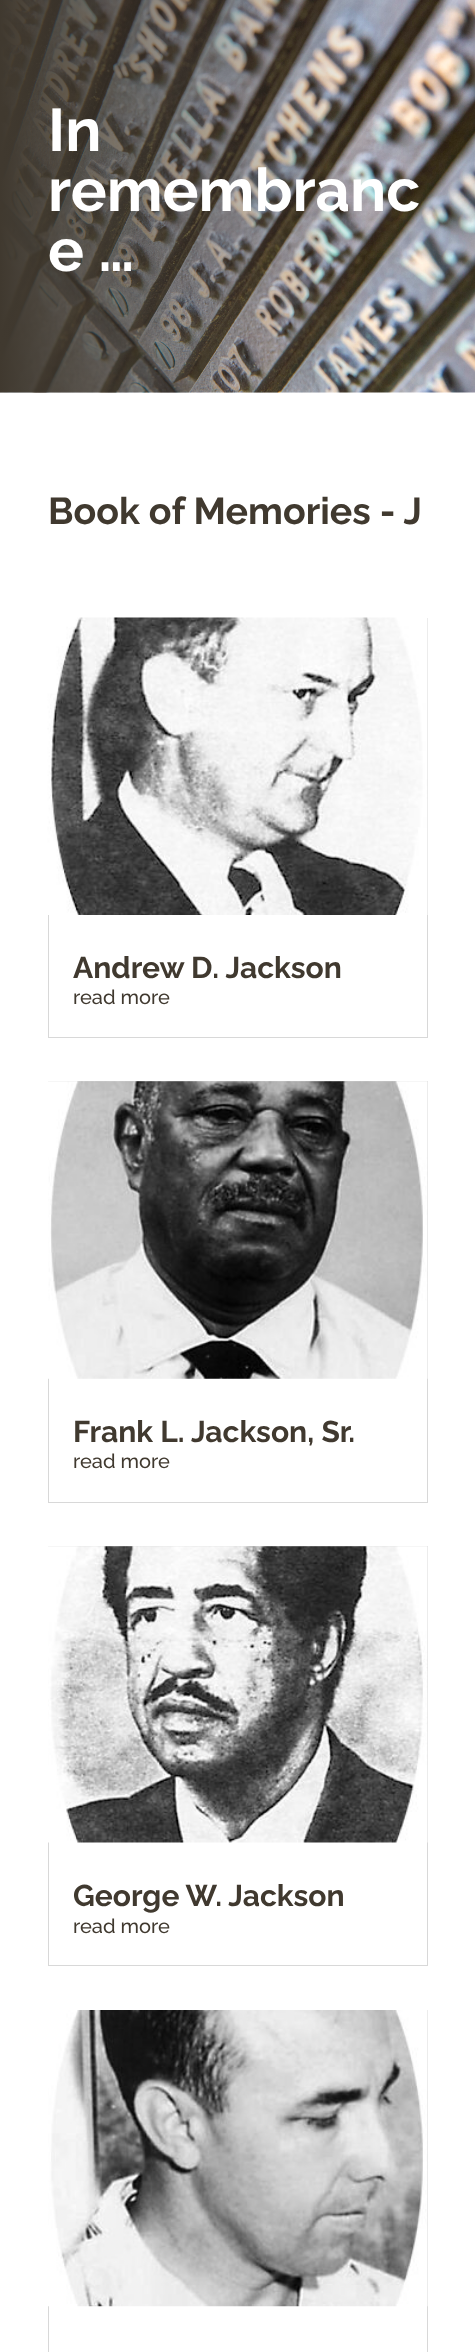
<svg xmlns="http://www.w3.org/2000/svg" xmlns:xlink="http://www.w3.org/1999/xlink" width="475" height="2352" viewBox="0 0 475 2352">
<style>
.cls-1{font:100 60px Raleway;fill:#ffffff}
.cls-2{font:100 37.5px Raleway;fill:#40392f}
.cls-3{font:100 30px Raleway;fill:#40392f}
.cls-4{font:100 20px 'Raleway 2';fill:#40392f}
</style>
<rect width="100%" height="100%" fill="#ffffff"/>
<image xlink:href="image0.png" x="0" y="0" width="475" height="393"/>
<rect fill="none" stroke="#d8d8d8" x="48.5" y="618.5" width="379" height="419"/>
<image xlink:href="image1.png" x="47" y="617" width="381" height="298"/>
<rect fill="none" stroke="#d8d8d8" x="48.5" y="1081.5" width="379" height="421"/>
<image xlink:href="image2.png" x="48" y="1081" width="380" height="298"/>
<rect fill="none" stroke="#d8d8d8" x="48.5" y="1546.5" width="379" height="419"/>
<image xlink:href="image3.png" x="48" y="1546" width="380" height="297"/>
<rect fill="none" stroke="#d8d8d8" x="48.5" y="2010.5" width="379" height="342"/>
<image xlink:href="image4.png" x="48" y="2010" width="380" height="297"/>
<text class="cls-1"><tspan x="48" y="151">In</tspan><tspan x="48" y="211">remembranc</tspan><tspan x="48" y="271">e …</tspan></text>
<text class="cls-2" x="48" y="524">Book of Memories - J</text>
<text class="cls-3" x="73" y="978">Andrew D. Jackson</text>
<text class="cls-4" x="73" y="1004">read more</text>
<text class="cls-3" x="73" y="1442">Frank L. Jackson, Sr.</text>
<text class="cls-4" x="73" y="1468">read more</text>
<text class="cls-3" x="73" y="1906">George W. Jackson</text>
<text class="cls-4" x="73" y="1933">read more</text>
</svg>
